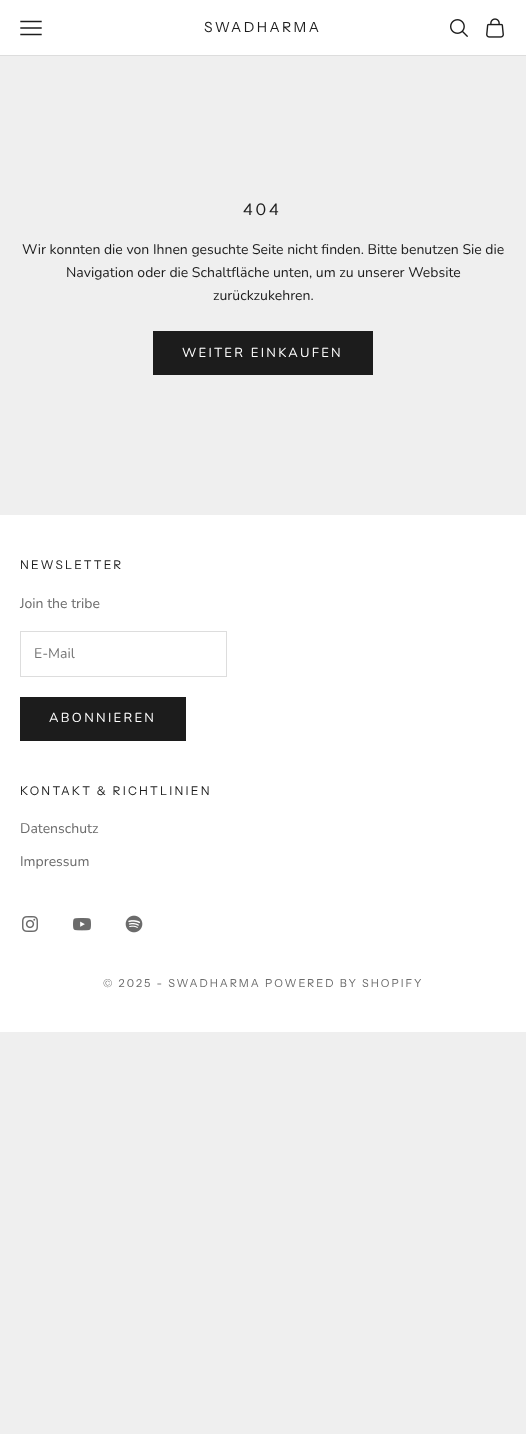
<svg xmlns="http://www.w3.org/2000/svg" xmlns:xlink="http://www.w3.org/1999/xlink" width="526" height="1434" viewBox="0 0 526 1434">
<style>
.cls-1{font:14px Instrument Sans;letter-spacing:2.5px;fill:#1c1c1c}
.cls-2{font:16px Instrument Sans;letter-spacing:3px;fill:#1c1c1c}
.cls-3{font:14px Nunito;fill:#1c1c1c}
.cls-4{font:13px Nunito;letter-spacing:2.3px;fill:#ffffff}
.cls-5{font:12px Instrument Sans;letter-spacing:2.2px;fill:#1c1c1c}
.cls-6{font:14px Nunito;fill:#6b6b6b}
.cls-7{font:14px Nunito;fill:#777777}
.cls-8{font:11px Instrument Sans;letter-spacing:2px;fill:#6b6b6b}
</style>
<rect width="100%" height="100%" fill="#efefef"/>
<rect fill="#ffffff" x="0" y="0" width="526" height="55"/>
<rect fill="#dddddd" x="0" y="55" width="526" height="1"/>
<path fill="none" stroke="#1c1c1c" stroke-width="1.4" stroke-linecap="square" d="M21 34.5H41M21 28H41M21 21.5H41"/>
<image xlink:href="image0.png" x="450" y="19" width="18" height="18"/>
<image xlink:href="image1.png" x="486" y="18" width="18" height="20"/>
<rect fill="#1c1c1c" stroke="#1c1c1c" x="153.5" y="331.5" width="219" height="43"/>
<rect fill="#ffffff" x="0" y="515" width="526" height="517"/>
<rect fill="none" stroke="#dddddd" x="20.5" y="631.5" width="206" height="45"/>
<rect fill="#1c1c1c" stroke="#1c1c1c" x="20.5" y="697.5" width="165" height="43"/>
<image xlink:href="image2.png" x="22" y="916" width="16" height="16"/>
<image xlink:href="image3.png" x="73" y="918" width="18" height="13"/>
<image xlink:href="image4.png" x="125" y="915" width="18" height="18"/>
<text class="cls-1" x="204" y="32">SWADHARMA</text>
<text class="cls-2" x="243" y="215">404</text>
<text class="cls-3" x="22" y="254">Wir konnten die von Ihnen gesuchte Seite nicht finden. Bitte benutzen Sie die</text>
<text class="cls-3" x="66" y="277">Navigation oder die Schaltfläche unten, um zu unserer Website</text>
<text class="cls-3" x="213" y="300">zurückzukehren.</text>
<text class="cls-4" x="182" y="357">WEITER EINKAUFEN</text>
<text class="cls-5" x="20" y="569">NEWSLETTER</text>
<text class="cls-6" x="20" y="608">Join the tribe</text>
<text class="cls-7" x="34" y="658">E-Mail</text>
<text class="cls-4" x="49" y="722">ABONNIEREN</text>
<text class="cls-5" x="20" y="795">KONTAKT &amp; RICHTLINIEN</text>
<text class="cls-6" x="20" y="833">Datenschutz</text>
<text class="cls-6" x="20" y="866">Impressum</text>
<text class="cls-8" x="103" y="987">© 2025 - SWADHARMA POWERED BY SHOPIFY</text>
</svg>
